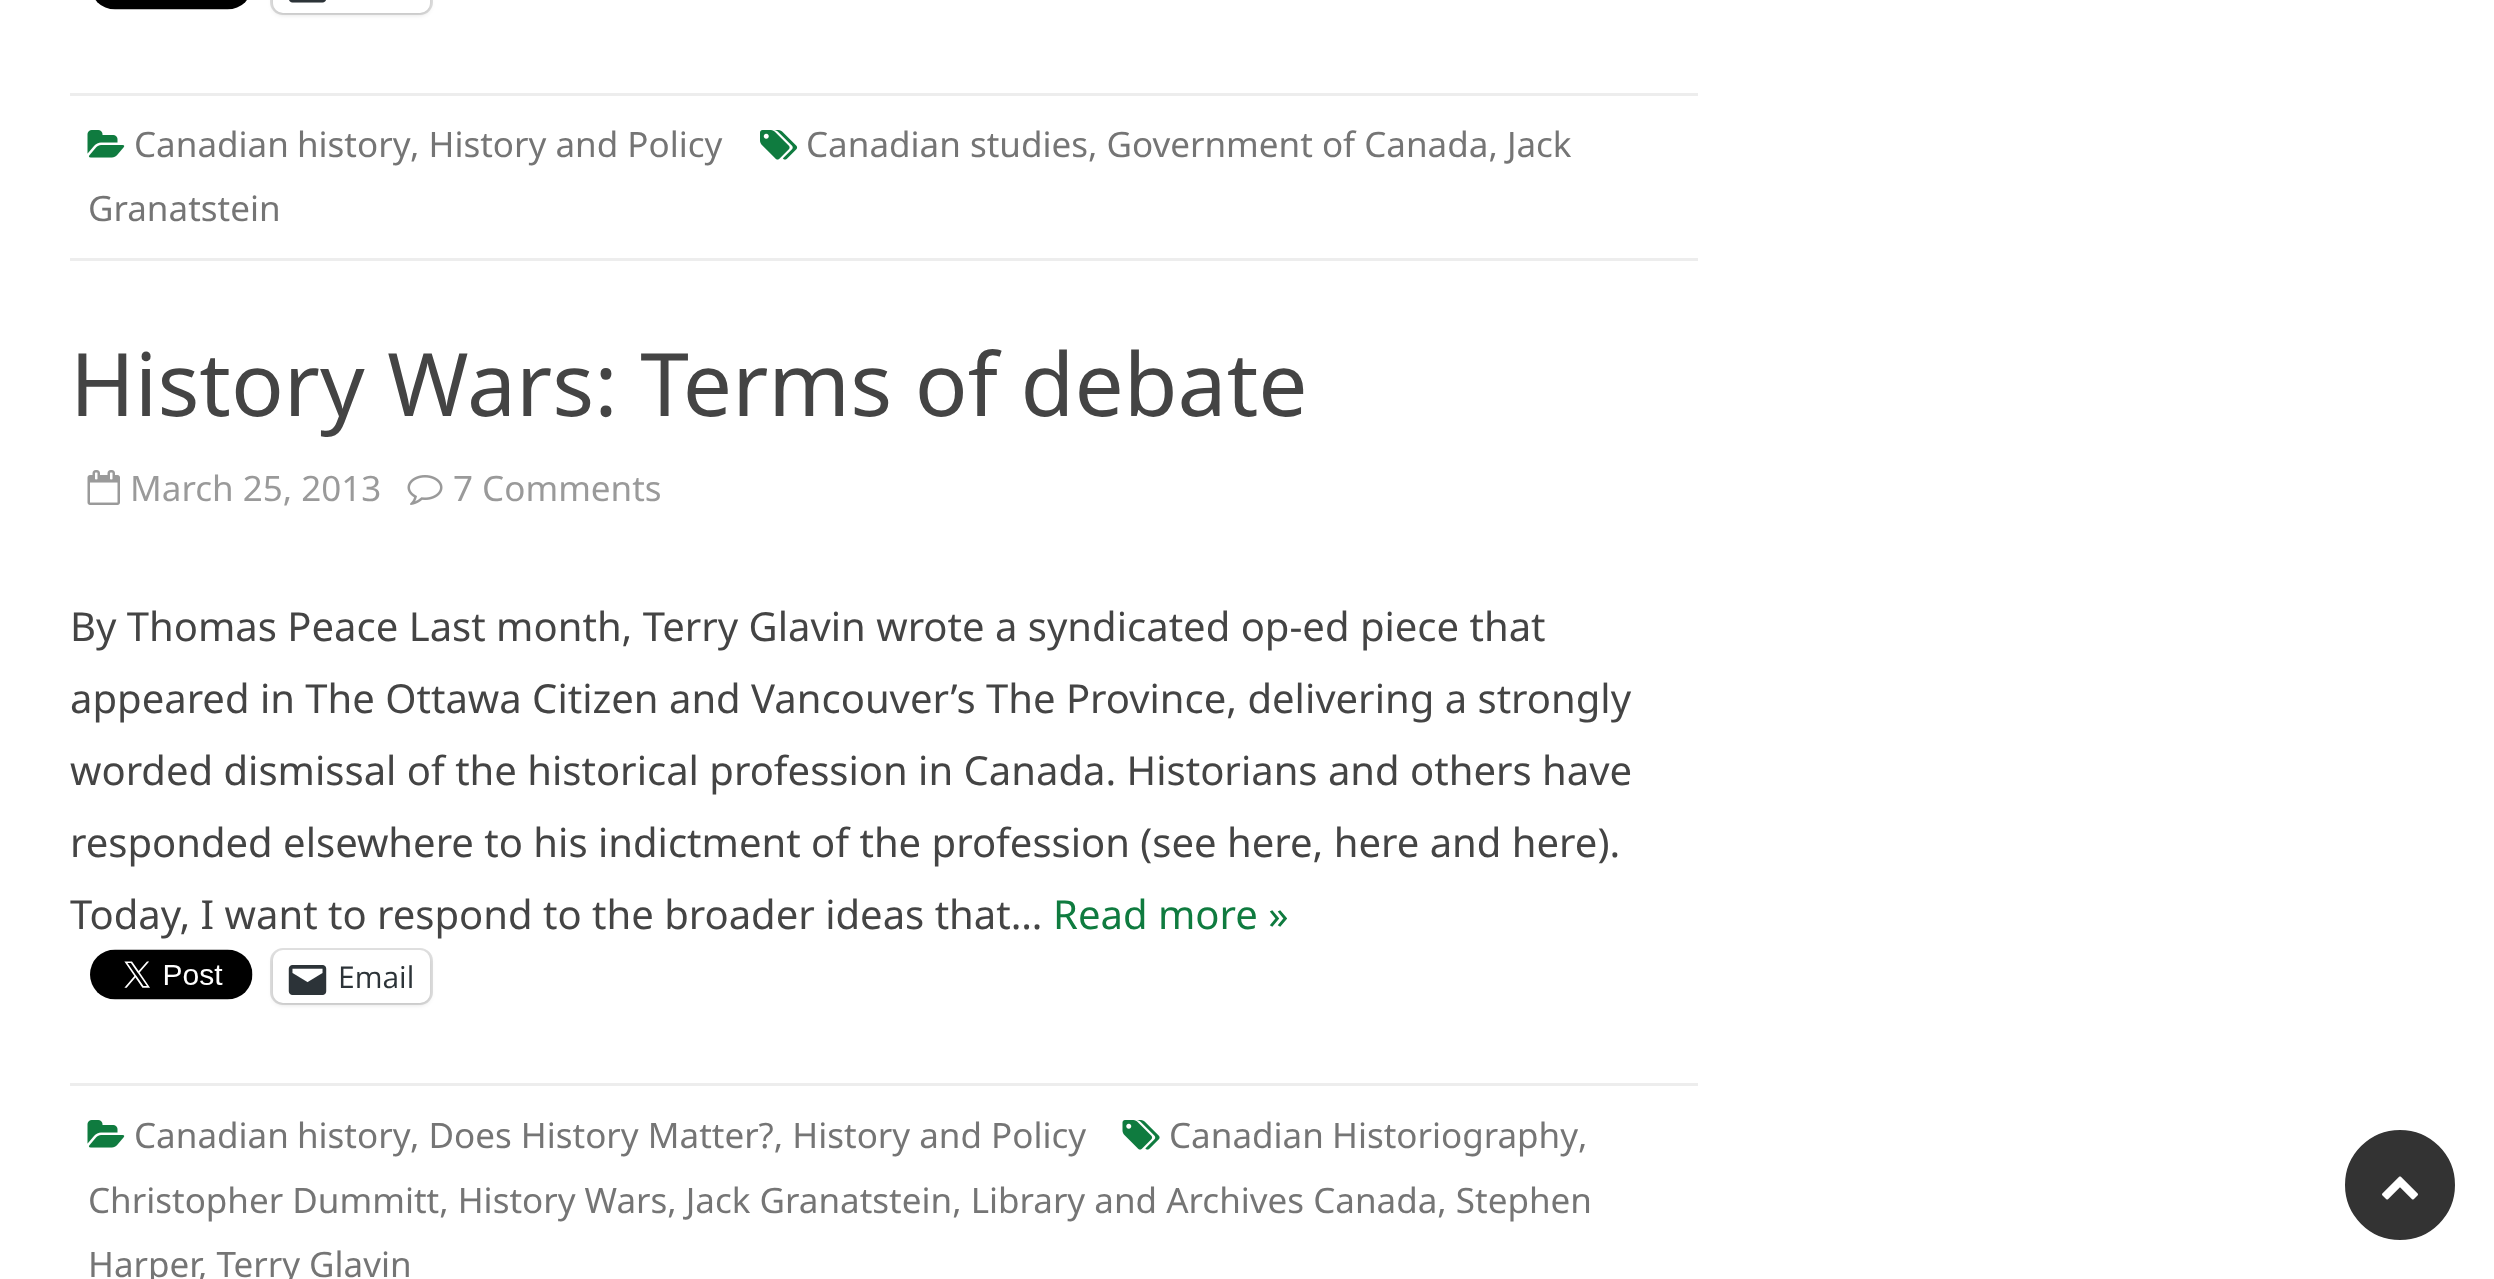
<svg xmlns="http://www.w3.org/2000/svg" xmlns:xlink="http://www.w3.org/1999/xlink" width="2494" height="1279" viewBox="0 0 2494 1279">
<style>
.cls-1{font:35px Noto Sans;fill:#757575}
.cls-2{font:87.5px Noto Sans;fill:#444444}
.cls-3{font:35px Noto Sans;fill:#9a9a9a}
.cls-4{font:40px Noto Sans;fill:#444444}
.cls-5{font:40px Noto Sans;fill:#0f7b3f}
.cls-6{font:30px Open Sans;fill:#2c3338}
</style>
<rect width="100%" height="100%" fill="#ffffff"/>
<rect fill="#ededed" x="70" y="258" width="1628" height="3"/>
<rect fill="#ededed" x="70" y="93" width="1628" height="3"/>
<image xlink:href="image0.png" x="95" y="0" width="152" height="10"/>
<rect fill="none" stroke="#e0e0e0" stroke-width="3" x="271.5" y="-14.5" width="160" height="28" rx="11.5"/>
<rect fill="#000000" fill-opacity="0.12" filter="blur(2.5px)" x="273" y="-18" width="157" height="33" rx="10"/>
<rect fill="#ffffff" x="273" y="-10" width="157" height="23" rx="10"/>
<image xlink:href="image1.png" x="289" y="0" width="37" height="3"/>
<image xlink:href="image2.png" x="87" y="130" width="38" height="28"/>
<image xlink:href="image3.png" x="760" y="130" width="38" height="30"/>
<image xlink:href="image4.png" x="87" y="470" width="33" height="35"/>
<image xlink:href="image5.png" x="407" y="475" width="36" height="30"/>
<rect fill="#ededed" x="70" y="1083" width="1628" height="3"/>
<image xlink:href="image6.png" x="90" y="949" width="163" height="51"/>
<rect fill="none" stroke="#e0e0e0" stroke-width="3" x="271.5" y="949.5" width="160" height="54" rx="11.5"/>
<rect fill="#000000" fill-opacity="0.12" filter="blur(2.5px)" x="273" y="953" width="157" height="52" rx="10"/>
<rect fill="#ffffff" x="273" y="950" width="157" height="53" rx="10"/>
<image xlink:href="image7.png" x="288" y="965" width="39" height="30"/>
<image xlink:href="image2.png" x="87" y="1120" width="38" height="28"/>
<image xlink:href="image8.png" x="1122" y="1120" width="38" height="30"/>
<circle fill="#333333" stroke="#ffffff" stroke-width="5" cx="2400" cy="1185" r="57.5"/>
<image xlink:href="image9.png" x="2382" y="1176" width="36" height="24"/>
<text class="cls-1" x="134" y="157" word-spacing="-1">Canadian history</text>
<text class="cls-1" x="410" y="157">, History and Policy</text>
<text class="cls-1" x="806" y="157">Canadian studies, Government of Canada, Jack</text>
<text class="cls-1" x="88" y="221">Granatstein</text>
<text class="cls-2" x="70" y="416">History Wars: Terms of debate</text>
<text class="cls-3" x="130" y="501">March 25, 2013</text>
<text class="cls-3" x="453" y="501">7 Comments</text>
<text class="cls-4"><tspan x="70" y="641">By Thomas Peace Last month, Terry Glavin wrote a syndicated op-ed piece that</tspan><tspan x="70" y="713">appeared in The Ottawa Citizen and Vancouver’s The Province, delivering a strongly</tspan><tspan x="70" y="785">worded dismissal of the historical profession in Canada. Historians and others have</tspan><tspan x="70" y="857">responded elsewhere to his indictment of the profession (see here, here and here).</tspan><tspan x="70" y="929">Today, I want to respond to the broader ideas that…</tspan></text>
<text class="cls-5" x="1053" y="929">Read more »</text>
<text class="cls-6" x="338" y="988">Email</text>
<text class="cls-1" x="134" y="1148" word-spacing="-1">Canadian history</text>
<text class="cls-1" x="410" y="1148">, Does History Matter?, History and Policy</text>
<text class="cls-1" x="1169" y="1148" word-spacing="-1">Canadian Historiography</text>
<text class="cls-1" x="1578" y="1148">,</text>
<text class="cls-1"><tspan x="88" y="1213">Christopher Dummitt, History Wars, Jack Granatstein, Library and Archives Canada, Stephen</tspan><tspan x="88" y="1277">Harper</tspan></text>
<text class="cls-1" x="198" y="1277">, Terry Glavin</text>
</svg>
